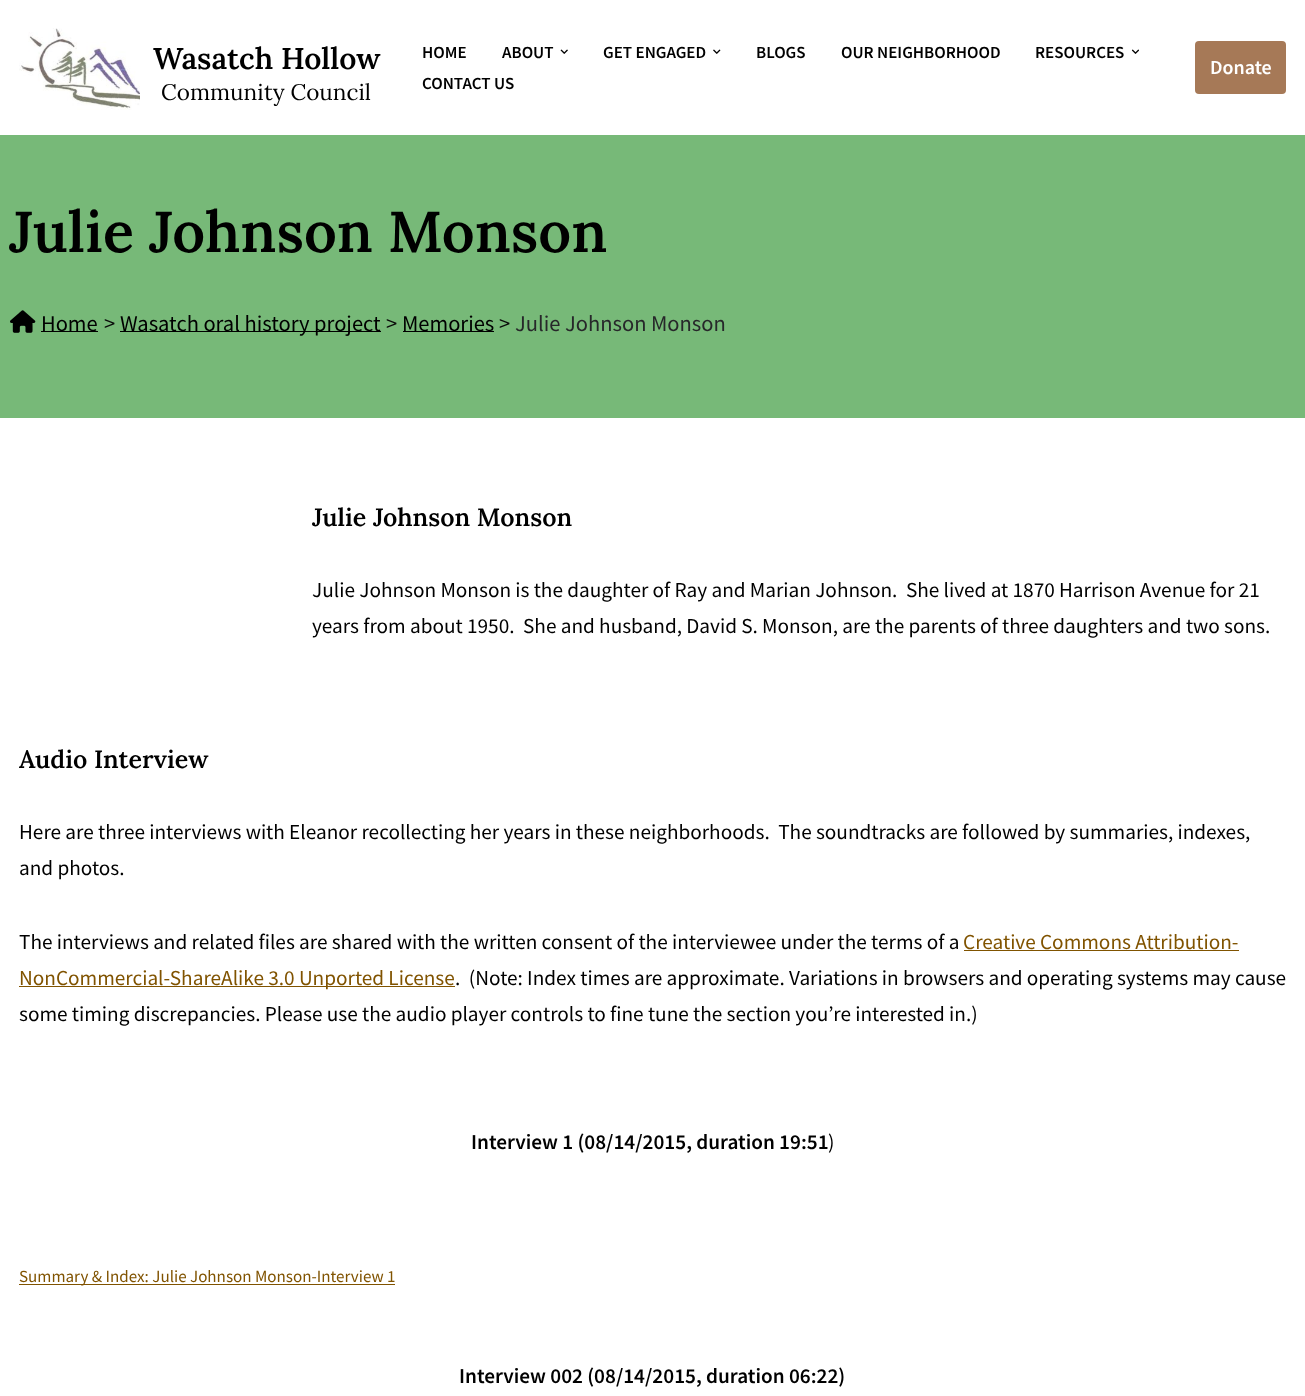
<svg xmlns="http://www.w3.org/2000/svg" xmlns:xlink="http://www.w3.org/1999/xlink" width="1305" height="1396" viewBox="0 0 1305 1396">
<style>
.cls-1{font:600 30px Lora;fill:#000000}
.cls-2{font:22.5px Lora;fill:#000000}
.cls-3{font:600 17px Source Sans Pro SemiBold;fill:#000000}
.cls-4{font:600 20px Source Sans Pro SemiBold;fill:#ffffff}
.cls-5{font:600 57.5px Lora;fill:#000000}
.cls-6{font:22.5px Source Sans Pro;fill:#000000}
.cls-7{font:22.5px Source Sans Pro;fill:#0a0a0a}
.cls-8{font:22.5px Source Sans Pro;fill:#27272a}
.cls-9{font:600 25px Lora;fill:#000000}
.cls-10{font:21.25px Source Sans Pro;fill:#000000}
.cls-11{font:21.25px Source Sans Pro;fill:#805300}
.cls-12{font:600 21.25px Source Sans Pro SemiBold;fill:#000000}
.cls-13{font:17px Source Sans Pro;fill:#805300}
</style>
<rect width="100%" height="100%" fill="#ffffff"/>
<image xlink:href="image0.png" x="19" y="28" width="121" height="82"/>
<image xlink:href="image1.png" x="560" y="49" width="8" height="5"/>
<image xlink:href="image2.png" x="713" y="49" width="8" height="5"/>
<image xlink:href="image3.png" x="1131" y="49" width="8" height="5"/>
<rect fill="#a67957" x="1195" y="41" width="91" height="53" rx="4"/>
<rect fill="#77b978" x="0" y="135" width="1305" height="283"/>
<image xlink:href="image4.png" x="10" y="310" width="26" height="23"/>
<rect fill="#000000" x="41" y="331" width="57" height="1"/>
<rect fill="#000000" x="120" y="331" width="261" height="1"/>
<rect fill="#000000" x="403" y="331" width="91" height="1"/>
<rect fill="#805300" x="964" y="950" width="275" height="1"/>
<rect fill="#805300" x="19" y="986" width="436" height="1"/>
<rect fill="#805300" x="19" y="1284" width="376" height="1"/>
<text class="cls-1" x="153" y="69">Wasatch Hollow</text>
<text class="cls-2" x="161" y="100">Community Council</text>
<text class="cls-3" x="422" y="58">HOME</text>
<text class="cls-3" x="502" y="58">ABOUT</text>
<text class="cls-3" x="603" y="58">GET ENGAGED</text>
<text class="cls-3" x="756" y="58">BLOGS</text>
<text class="cls-3" x="841" y="58">OUR NEIGHBORHOOD</text>
<text class="cls-3" x="1035" y="58">RESOURCES</text>
<text class="cls-3" x="422" y="89">CONTACT US</text>
<text class="cls-4" x="1210" y="74">Donate</text>
<text class="cls-5" x="9" y="252">Julie Johnson Monson</text>
<text class="cls-6" x="41" y="331">Home</text>
<text class="cls-7" x="104" y="331">&gt;</text>
<text class="cls-6" x="120" y="331">Wasatch oral history project</text>
<text class="cls-7" x="386" y="331">&gt;</text>
<text class="cls-6" x="402" y="331">Memories</text>
<text class="cls-7" x="499" y="331">&gt;</text>
<text class="cls-8" x="515" y="331">Julie Johnson Monson</text>
<text class="cls-9" x="312" y="526">Julie Johnson Monson</text>
<text class="cls-10" xml:space="preserve"><tspan x="312" y="597">Julie Johnson Monson is the daughter of Ray and Marian Johnson.  She lived at 1870 Harrison Avenue for 21</tspan><tspan x="312" y="633">years from about 1950.  She and husband, David S. Monson, are the parents of three daughters and two sons.</tspan></text>
<text class="cls-9" x="19" y="768">Audio Interview</text>
<text class="cls-10" xml:space="preserve"><tspan x="19" y="839">Here are three interviews with Eleanor recollecting her years in these neighborhoods.  The soundtracks are followed by summaries, indexes,</tspan><tspan x="19" y="875">and photos.</tspan></text>
<text class="cls-10" x="19" y="949">The interviews and related files are shared with the written consent of the interviewee under the terms of a</text>
<text class="cls-11" x="963" y="949">Creative Commons Attribution-</text>
<text class="cls-11" x="19" y="985">NonCommercial-ShareAlike 3.0 Unported License</text>
<text class="cls-10" xml:space="preserve" x="455" y="985">.  (Note: Index times are approximate. Variations in browsers and operating systems may cause</text>
<text class="cls-10" x="19" y="1021">some timing discrepancies. Please use the audio player controls to fine tune the section you’re interested in.)</text>
<text class="cls-12" x="471" y="1149">Interview 1 (08/14/2015, duration 19:51</text>
<text class="cls-10" x="828" y="1149">)</text>
<text class="cls-13" x="19" y="1282">Summary &amp; Index: Julie Johnson Monson-Interview 1</text>
<text class="cls-12" x="459" y="1383">Interview 002 (08/14/2015, duration 06:22)</text>
</svg>
